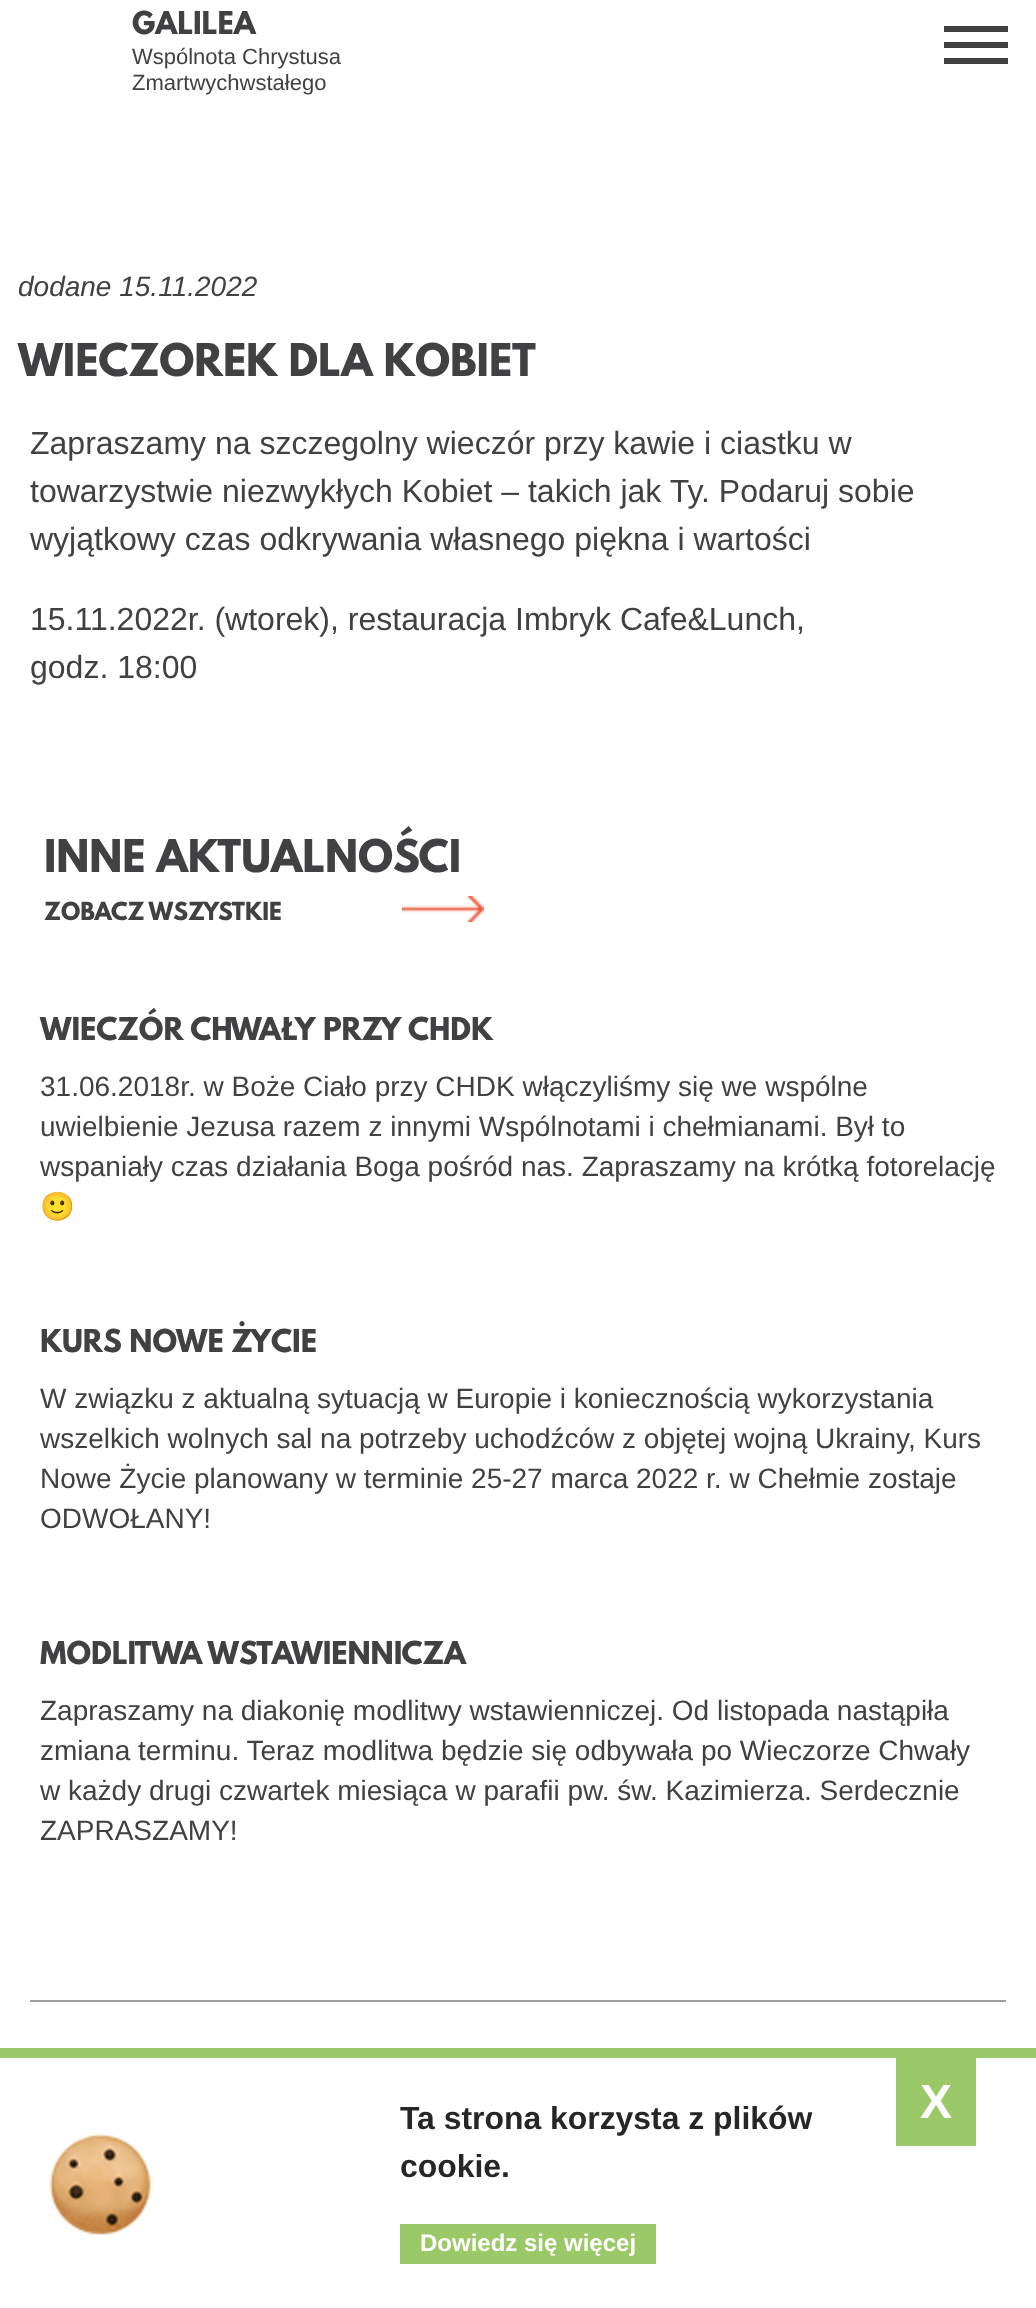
<svg xmlns="http://www.w3.org/2000/svg" xmlns:xlink="http://www.w3.org/1999/xlink" width="1036" height="2308" viewBox="0 0 1036 2308">
<style>
.cls-1{font:bold 28px League Spartan;fill:#414042}
.cls-2{font:22px Liberation Sans;fill:#414042}
.cls-3{font:italic 28px Liberation Sans;fill:#414042}
.cls-4{font:bold 40px League Spartan;fill:#414042}
.cls-5{font:32px Liberation Sans;fill:#414042}
.cls-6{font:bold 22px League Spartan;fill:#414042}
.cls-7{font:28px Liberation Sans;fill:#414042}
.cls-8{font:28px Noto Color Emoji;fill:#414042}
.cls-9{font:bold 48px Liberation Sans;fill:#ffffff}
.cls-10{font:bold 31.9px Liberation Sans;fill:#262626}
.cls-11{font:bold 24px Liberation Sans;fill:#ffffff}
</style>
<rect width="100%" height="100%" fill="#ffffff"/>
<rect fill="#414042" x="944" y="26" width="64" height="6"/>
<rect fill="#414042" x="944" y="42" width="64" height="6"/>
<rect fill="#414042" x="944" y="58" width="64" height="6"/>
<image xlink:href="image0.png" x="402" y="896" width="82" height="26"/>
<rect fill="#a09fa0" x="30" y="2000" width="976" height="2"/>
<image xlink:href="image1.png" x="49" y="2133" width="104" height="102"/>
<rect fill="#9bc968" x="0" y="2048" width="1036" height="10"/>
<rect fill="#9bc968" x="896" y="2058" width="80" height="88"/>
<rect fill="#9bc968" x="400" y="2224" width="256" height="40"/>
<text class="cls-1" x="132" y="34">GALILEA</text>
<text class="cls-2"><tspan x="132" y="64">Wspólnota Chrystusa</tspan><tspan x="132" y="90">Zmartwychwstałego</tspan></text>
<text class="cls-3" x="18" y="296">dodane 15.11.2022</text>
<text class="cls-4" x="18" y="376">WIECZOREK DLA KOBIET</text>
<text class="cls-5"><tspan x="30" y="454">Zapraszamy na szczegolny wieczór przy kawie i ciastku w</tspan><tspan x="30" y="502">towarzystwie niezwykłych Kobiet – takich jak Ty. Podaruj sobie</tspan><tspan x="30" y="550">wyjątkowy czas odkrywania własnego piękna i wartości</tspan></text>
<text class="cls-5"><tspan x="30" y="630">15.11.2022r. (wtorek), restauracja Imbryk Cafe&amp;Lunch,</tspan><tspan x="30" y="678">godz. 18:00</tspan></text>
<text class="cls-4" x="44" y="872">INNE AKTUALNOŚCI</text>
<text class="cls-6" x="44" y="920">ZOBACZ WSZYSTKIE</text>
<text class="cls-1" x="40" y="1040">WIECZÓR CHWAŁY PRZY CHDK</text>
<text class="cls-7"><tspan x="40" y="1096">31.06.2018r. w Boże Ciało przy CHDK włączyliśmy się we wspólne</tspan><tspan x="40" y="1136">uwielbienie Jezusa razem z innymi Wspólnotami i chełmianami. Był to</tspan><tspan x="40" y="1176">wspaniały czas działania Boga pośród nas. Zapraszamy na krótką fotorelację</tspan></text>
<text class="cls-8" x="40" y="1216">🙂</text>
<text class="cls-1" x="40" y="1352">KURS NOWE ŻYCIE</text>
<text class="cls-7"><tspan x="40" y="1408">W związku z aktualną sytuacją w Europie i koniecznością wykorzystania</tspan><tspan x="40" y="1448">wszelkich wolnych sal na potrzeby uchodźców z objętej wojną Ukrainy, Kurs</tspan><tspan x="40" y="1488">Nowe Życie planowany w terminie 25-27 marca 2022 r. w Chełmie zostaje</tspan><tspan x="40" y="1528">ODWOŁANY!</tspan></text>
<text class="cls-1" x="40" y="1664">MODLITWA WSTAWIENNICZA</text>
<text class="cls-7"><tspan x="40" y="1720">Zapraszamy na diakonię modlitwy wstawienniczej. Od listopada nastąpiła</tspan><tspan x="40" y="1760">zmiana terminu. Teraz modlitwa będzie się odbywała po Wieczorze Chwały</tspan><tspan x="40" y="1800">w każdy drugi czwartek miesiąca w parafii pw. św. Kazimierza. Serdecznie</tspan><tspan x="40" y="1840">ZAPRASZAMY!</tspan></text>
<text class="cls-9" x="920" y="2118">X</text>
<text class="cls-10"><tspan x="400" y="2129">Ta strona korzysta z plików</tspan><tspan x="400" y="2177">cookie.</tspan></text>
<text class="cls-11" x="420" y="2251">Dowiedz się więcej</text>
</svg>
